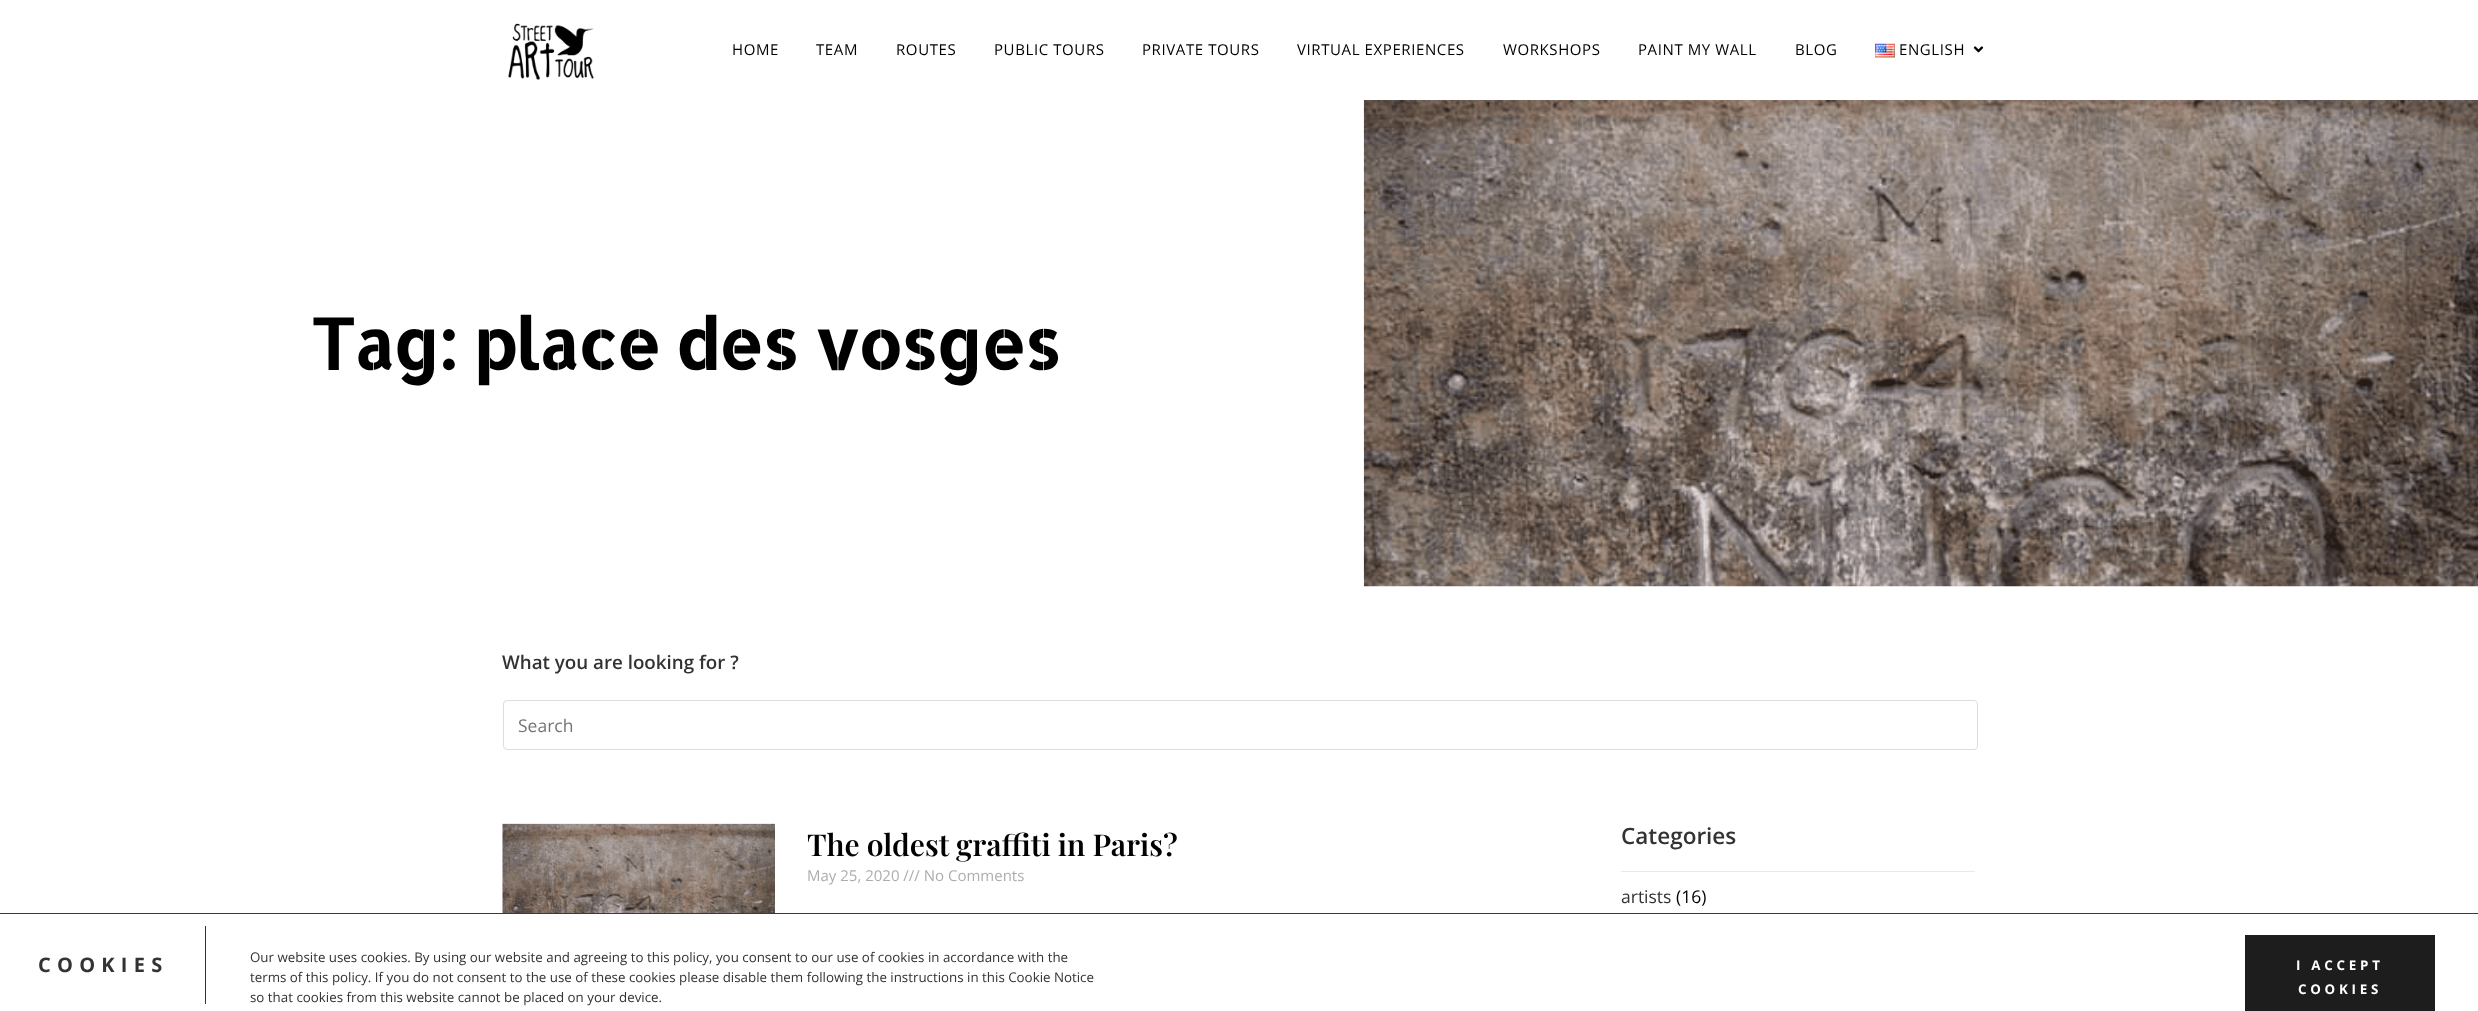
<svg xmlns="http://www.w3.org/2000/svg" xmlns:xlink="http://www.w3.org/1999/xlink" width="2478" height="1011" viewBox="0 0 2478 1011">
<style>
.cls-1{font:15px Open Sans;letter-spacing:0.6px;fill:#000000}
.cls-2{font:bold 70px Allerta Stencil;letter-spacing:-1.75px;fill:#000000}
.cls-3{font:600 18.75px Open Sans;fill:#333333}
.cls-4{font:17.5px Open Sans;fill:#757575}
.cls-5{font:600 30px Playfair Display;fill:#000000}
.cls-6{font:15px Open Sans;fill:#adadad}
.cls-7{font:600 22.5px Open Sans;fill:#333333}
.cls-8{font:17.5px Open Sans;fill:#333333}
.cls-9{font:17.5px Open Sans;fill:#000000}
.cls-10{font:bold 20px Open Sans;letter-spacing:6.25px;fill:#333333}
.cls-11{font:13.33px Open Sans;fill:#333333}
.cls-12{font:bold 13.33px Open Sans;letter-spacing:3.75px;fill:#ffffff}
</style>
<rect width="100%" height="100%" fill="#ffffff"/>
<image xlink:href="image0.png" x="508" y="23" width="86" height="57"/>
<image xlink:href="image1.png" x="1875" y="43" width="20" height="15"/>
<image xlink:href="image2.png" x="1973" y="46" width="11" height="7"/>
<image xlink:href="image3.png" x="1363" y="100" width="1115" height="487"/>
<rect fill="none" stroke="#dddddd" x="503.5" y="700.5" width="1474" height="49" rx="3.5"/>
<image xlink:href="image4.png" x="502" y="823" width="273" height="90"/>
<rect fill="#e9e9e9" x="1621" y="871" width="354" height="1"/>
<rect fill="#3b3939" x="0" y="913" width="2478" height="1"/>
<rect fill="#333333" x="205" y="926" width="1" height="78"/>
<rect fill="#1d1d1d" x="2245" y="935" width="190" height="76"/>
<text class="cls-1" x="732" y="55">HOME</text>
<text class="cls-1" x="816" y="55">TEAM</text>
<text class="cls-1" x="896" y="55">ROUTES</text>
<text class="cls-1" x="994" y="55">PUBLIC TOURS</text>
<text class="cls-1" x="1142" y="55">PRIVATE TOURS</text>
<text class="cls-1" x="1297" y="55">VIRTUAL EXPERIENCES</text>
<text class="cls-1" x="1503" y="55">WORKSHOPS</text>
<text class="cls-1" x="1638" y="55">PAINT MY WALL</text>
<text class="cls-1" x="1795" y="55">BLOG</text>
<text class="cls-1" x="1899" y="55">ENGLISH</text>
<text class="cls-2" x="310" y="370">Tag: place des vosges</text>
<text class="cls-3" x="502" y="669">What you are looking for ?</text>
<text class="cls-4" x="518" y="732">Search</text>
<text class="cls-5" x="807" y="856">The oldest graffiti in Paris?</text>
<text class="cls-6" x="807" y="881">May 25, 2020 /// No Comments</text>
<text class="cls-7" x="1621" y="844">Categories</text>
<text class="cls-8" x="1621" y="903">artists</text>
<text class="cls-9" x="1676" y="903">(16)</text>
<text class="cls-10" x="38" y="972">COOKIES</text>
<text class="cls-11"><tspan x="250" y="962">Our website uses cookies. By using our website and agreeing to this policy, you consent to our use of cookies in accordance with the</tspan><tspan x="250" y="982">terms of this policy. If you do not consent to the use of these cookies please disable them following the instructions in this Cookie Notice</tspan><tspan x="250" y="1002">so that cookies from this website cannot be placed on your device.</tspan></text>
<text class="cls-12" x="2296" y="970">I ACCEPT</text>
<text class="cls-12" x="2298" y="994">COOKIES</text>
</svg>
